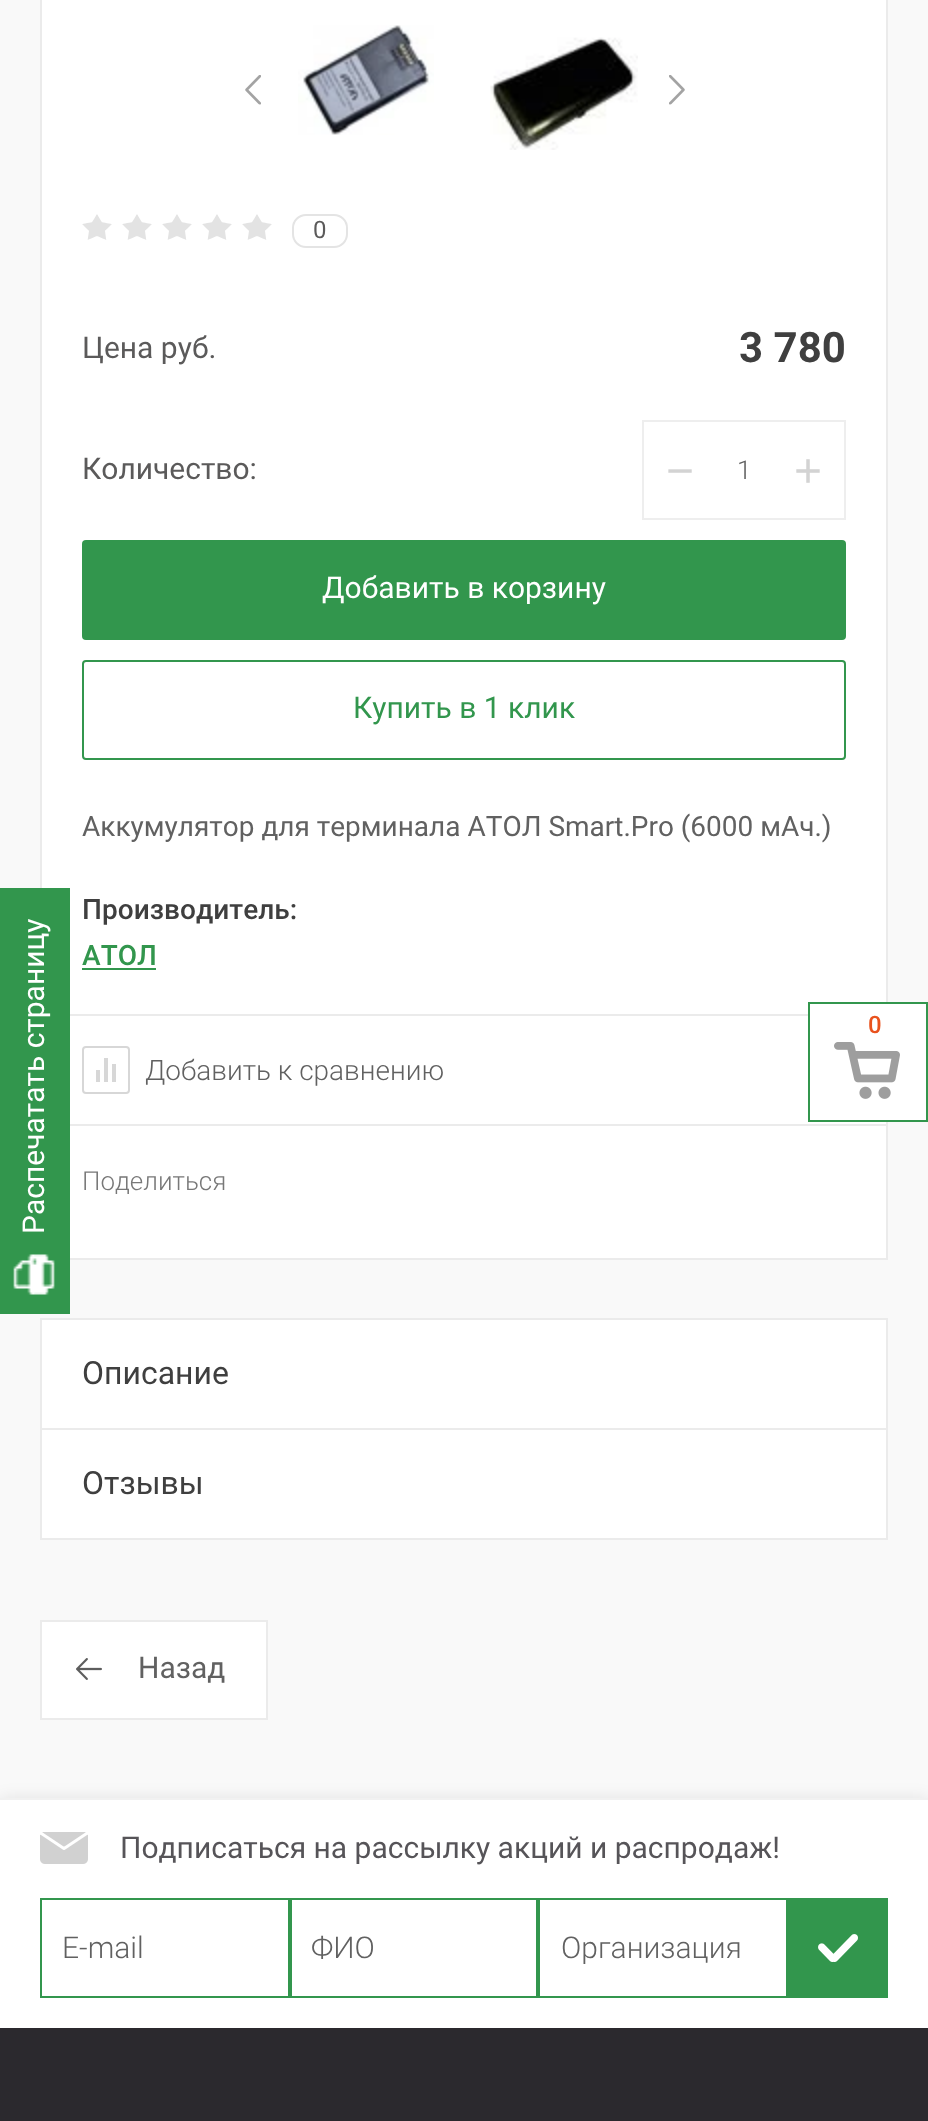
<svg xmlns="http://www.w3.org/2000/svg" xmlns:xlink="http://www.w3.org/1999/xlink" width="928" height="2121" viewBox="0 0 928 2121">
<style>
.cls-1{font:30px Roboto;fill:#ffffff}
.cls-2{font:24px Roboto;fill:#5b5a5a}
.cls-3{font:30px Roboto;fill:#5b5a5a}
.cls-4{font:bold 42px Roboto;fill:#3f3f3f}
.cls-5{font:48px Liberation Sans;fill:#d3d3d3}
.cls-6{font:300 26px Roboto;fill:#616161}
.cls-7{font:30px Roboto;fill:#32964d}
.cls-8{font:28px Roboto;fill:#616161}
.cls-9{font:500 28px Roboto;fill:#3f3f3f}
.cls-10{font:500 28px Roboto;fill:#32964d}
.cls-11{font:300 28px Roboto;fill:#616161}
.cls-12{font:300 26px Roboto;fill:#787878}
.cls-13{font:32px Roboto;fill:#3f3f3f}
.cls-14{font:30px Roboto;fill:#616161}
.cls-15{font:500 24px Roboto;fill:#e9521d}
.cls-16{font:30px Roboto;fill:#565458}
.cls-17{font:300 30px Roboto;fill:#616161}
</style>
<rect width="100%" height="100%" fill="#f9f9f9"/>
<rect fill="#ffffff" stroke="#ebebeb" stroke-width="2" x="41" y="-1" width="846" height="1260"/>
<rect fill="#32964d" x="0" y="888" width="70" height="426"/>
<image xlink:href="image0.png" x="13" y="1254" width="42" height="41"/>
<image xlink:href="image1.png" x="298" y="25" width="136" height="110"/>
<image xlink:href="image2.png" x="490" y="37" width="148" height="113"/>
<image xlink:href="image3.png" x="245" y="75" width="16" height="30"/>
<image xlink:href="image4.png" x="669" y="75" width="16" height="30"/>
<image xlink:href="image5.png" x="82" y="214" width="190" height="26"/>
<rect fill="none" stroke="#e4e4e4" stroke-width="2" x="293" y="215" width="54" height="32" rx="13"/>
<rect fill="none" stroke="#eeeeee" stroke-width="2" x="643" y="421" width="202" height="98"/>
<rect fill="#32964d" x="82" y="540" width="764" height="100" rx="4"/>
<rect fill="none" stroke="#32964d" stroke-width="2" x="83" y="661" width="762" height="98" rx="3"/>
<rect fill="#32964d" x="82" y="968" width="74" height="2"/>
<rect fill="#ebebeb" x="70" y="1014" width="738" height="2"/>
<image xlink:href="image6.png" x="96" y="1058" width="20" height="24"/>
<rect fill="none" stroke="#d7d7d7" stroke-width="2" x="83" y="1047" width="46" height="46" rx="3"/>
<rect fill="#ebebeb" x="70" y="1124" width="816" height="2"/>
<rect fill="#ffffff" stroke="#ebebeb" stroke-width="2" x="41" y="1319" width="846" height="110"/>
<rect fill="#ffffff" stroke="#ebebeb" stroke-width="2" x="41" y="1429" width="846" height="110"/>
<rect fill="#ffffff" x="42" y="1622" width="224" height="96"/>
<image xlink:href="image7.png" x="76" y="1658" width="26" height="22"/>
<rect fill="none" stroke="#ebebeb" stroke-width="2" x="41" y="1621" width="226" height="98"/>
<rect fill="#ffffff" x="886" y="1004" width="40" height="116"/>
<rect fill="none" stroke="#32964d" stroke-width="2" x="809" y="1003" width="118" height="118"/>
<image xlink:href="image8.png" x="834" y="1042" width="66" height="57"/>
<rect fill="#000000" fill-opacity="0.09" filter="blur(8px)" x="0" y="1798" width="928" height="230"/>
<rect fill="#ffffff" x="0" y="1800" width="928" height="228"/>
<rect fill="#f1f1f1" x="0" y="1798" width="928" height="2"/>
<image xlink:href="image9.png" x="40" y="1832" width="48" height="32"/>
<rect fill="none" stroke="#32964d" stroke-width="2" x="41" y="1899" width="248" height="98"/>
<rect fill="none" stroke="#32964d" stroke-width="2" x="291" y="1899" width="246" height="98"/>
<rect fill="none" stroke="#32964d" stroke-width="2" x="539" y="1899" width="248" height="98"/>
<rect fill="#32964d" x="788" y="1898" width="100" height="100"/>
<image xlink:href="image10.png" x="818" y="1934" width="40" height="28"/>
<rect fill="#2b292e" x="0" y="2028" width="928" height="93"/>
<text class="cls-1" x="44" y="1234" transform="rotate(-90 44 1234)">Распечатать страницу</text>
<text class="cls-2" x="313" y="238">0</text>
<text class="cls-3" x="82" y="358">Цена руб.</text>
<text class="cls-4" x="739" y="362">3 780</text>
<text class="cls-3" x="82" y="479">Количество:</text>
<text class="cls-5" x="666" y="487">−</text>
<text class="cls-6" x="737" y="479">1</text>
<text class="cls-5" x="794" y="487">+</text>
<text class="cls-1" x="322" y="598">Добавить в корзину</text>
<text class="cls-7" x="353" y="718">Купить в 1 клик</text>
<text class="cls-8" x="82" y="836">Аккумулятор для терминала АТОЛ Smart.Pro (6000 мАч.)</text>
<text class="cls-9" x="82" y="919">Производитель:</text>
<text class="cls-10" x="82" y="965">АТОЛ</text>
<text class="cls-11" x="145" y="1080">Добавить к сравнению</text>
<text class="cls-12" x="82" y="1190">Поделиться</text>
<text class="cls-13" x="82" y="1384">Описание</text>
<text class="cls-13" x="82" y="1494">Отзывы</text>
<text class="cls-14" x="138" y="1678">Назад</text>
<text class="cls-15" x="868" y="1033">0</text>
<text class="cls-16" x="120" y="1858">Подписаться на рассылку акций и распродаж!</text>
<text class="cls-17" x="62" y="1958">E-mail</text>
<text class="cls-17" x="311" y="1958">ФИО</text>
<text class="cls-17" x="561" y="1958">Организация</text>
</svg>
